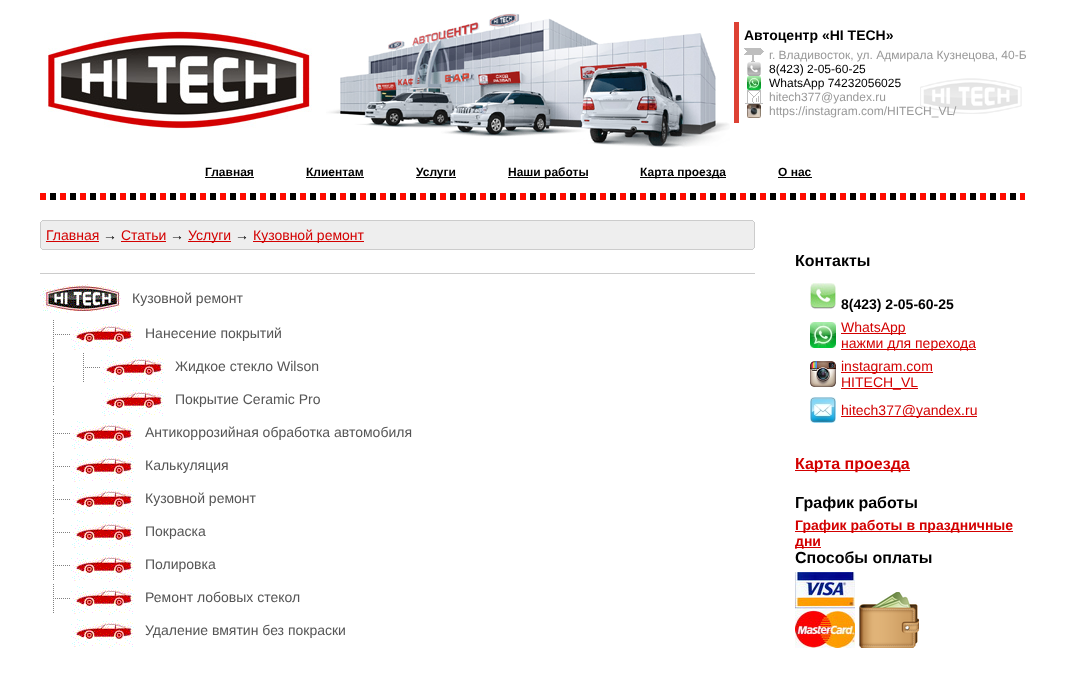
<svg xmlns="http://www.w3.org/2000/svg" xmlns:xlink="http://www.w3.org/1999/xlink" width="1065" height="700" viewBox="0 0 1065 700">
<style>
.cls-1{font:bold 14px Liberation Sans;fill:#000000}
.cls-2{font:12px Liberation Sans;fill:#999999}
.cls-3{font:12px Liberation Sans;fill:#000000}
.cls-4{font:bold 12px Liberation Sans;fill:#000000}
.cls-5{font:14px Liberation Sans;fill:#d30000}
.cls-6{font:14px Liberation Sans;fill:#000000}
.cls-7{font:14px Liberation Sans;fill:#555555}
.cls-8{font:bold 16px Liberation Sans;fill:#000000}
.cls-9{font:bold 16px Liberation Sans;fill:#d30000}
.cls-10{font:bold 14px Liberation Sans;fill:#d30000}
</style>
<rect width="100%" height="100%" fill="#ffffff"/>
<image xlink:href="image0.png" x="48" y="31" width="264" height="98"/>
<image xlink:href="image1.png" x="371" y="41" width="41" height="15"/>
<image xlink:href="image2.png" x="412" y="27" width="46" height="29"/>
<image xlink:href="image3.png" x="458" y="14" width="46" height="42"/>
<image xlink:href="image4.png" x="504" y="13" width="46" height="43"/>
<image xlink:href="image5.png" x="550" y="19" width="46" height="37"/>
<image xlink:href="image6.png" x="596" y="39" width="46" height="17"/>
<image xlink:href="image7.png" x="642" y="34" width="46" height="22"/>
<image xlink:href="image8.png" x="688" y="33" width="21" height="23"/>
<image xlink:href="image9.png" x="340" y="74" width="26" height="28"/>
<image xlink:href="image10.png" x="366" y="56" width="46" height="46"/>
<image xlink:href="image11.png" x="412" y="56" width="46" height="46"/>
<image xlink:href="image12.png" x="458" y="56" width="46" height="46"/>
<image xlink:href="image13.png" x="504" y="56" width="46" height="46"/>
<image xlink:href="image14.png" x="550" y="56" width="46" height="46"/>
<image xlink:href="image15.png" x="596" y="56" width="46" height="46"/>
<image xlink:href="image16.png" x="642" y="56" width="46" height="46"/>
<image xlink:href="image17.png" x="688" y="56" width="28" height="46"/>
<image xlink:href="image18.png" x="326" y="102" width="40" height="23"/>
<image xlink:href="image19.png" x="366" y="102" width="46" height="26"/>
<image xlink:href="image20.png" x="412" y="102" width="46" height="33"/>
<image xlink:href="image21.png" x="458" y="102" width="46" height="35"/>
<image xlink:href="image22.png" x="504" y="102" width="46" height="35"/>
<image xlink:href="image23.png" x="550" y="102" width="46" height="42"/>
<image xlink:href="image24.png" x="596" y="102" width="46" height="45"/>
<image xlink:href="image25.png" x="642" y="102" width="46" height="46"/>
<image xlink:href="image26.png" x="688" y="102" width="42" height="45"/>
<rect fill="#dd4134" x="734" y="22" width="5" height="101"/>
<image xlink:href="image27.png" x="920" y="78" width="102" height="36"/>
<image xlink:href="image28.png" x="744" y="48" width="20" height="14"/>
<image xlink:href="image29.png" x="747" y="62" width="14" height="14"/>
<image xlink:href="image30.png" x="747" y="76" width="14" height="14"/>
<image xlink:href="image31.png" x="745" y="90" width="18" height="14"/>
<image xlink:href="image32.png" x="747" y="104" width="14" height="14"/>
<rect fill="#000000" x="205" y="177" width="49" height="1"/>
<rect fill="#000000" x="306" y="177" width="58" height="1"/>
<rect fill="#000000" x="416" y="177" width="40" height="1"/>
<rect fill="#000000" x="508" y="177" width="80" height="1"/>
<rect fill="#000000" x="640" y="177" width="86" height="1"/>
<rect fill="#000000" x="778" y="177" width="34" height="1"/>
<image xlink:href="image33.png" x="40" y="193" width="985" height="7"/>
<rect fill="#cccccc" x="42" y="220" width="711" height="1"/>
<rect fill="#eeeeee" x="42" y="221" width="711" height="1"/>
<rect fill="#cccccc" x="753" y="221" width="1" height="1"/>
<rect fill="#cccccc" x="41" y="221" width="1" height="1"/>
<rect fill="#eeeeee" x="41" y="222" width="713" height="26"/>
<rect fill="#cccccc" x="754" y="222" width="1" height="26"/>
<rect fill="#cccccc" x="40" y="222" width="1" height="26"/>
<rect fill="#d30000" x="46" y="241" width="53" height="1"/>
<rect fill="#d30000" x="121" y="241" width="45" height="1"/>
<rect fill="#d30000" x="188" y="241" width="43" height="1"/>
<rect fill="#d30000" x="253" y="241" width="111" height="1"/>
<rect fill="#eeeeee" x="42" y="248" width="711" height="1"/>
<rect fill="#cccccc" x="753" y="248" width="1" height="1"/>
<rect fill="#cccccc" x="41" y="248" width="1" height="1"/>
<rect fill="#cccccc" x="42" y="249" width="711" height="1"/>
<rect fill="#cccccc" x="40" y="273" width="715" height="1"/>
<image xlink:href="image34.png" x="40" y="282" width="81" height="31"/>
<image xlink:href="image35.png" x="53" y="320" width="17" height="29"/>
<image xlink:href="image36.png" x="71" y="322" width="63" height="29"/>
<image xlink:href="image37.png" x="53" y="353" width="1" height="29"/>
<image xlink:href="image35.png" x="83" y="353" width="17" height="29"/>
<image xlink:href="image36.png" x="101" y="355" width="63" height="29"/>
<image xlink:href="image37.png" x="53" y="386" width="1" height="29"/>
<image xlink:href="image36.png" x="101" y="388" width="63" height="29"/>
<image xlink:href="image35.png" x="53" y="419" width="17" height="29"/>
<image xlink:href="image36.png" x="71" y="421" width="63" height="29"/>
<image xlink:href="image35.png" x="53" y="452" width="17" height="29"/>
<image xlink:href="image36.png" x="71" y="454" width="63" height="29"/>
<image xlink:href="image35.png" x="53" y="485" width="17" height="29"/>
<image xlink:href="image36.png" x="71" y="487" width="63" height="29"/>
<image xlink:href="image35.png" x="53" y="518" width="17" height="29"/>
<image xlink:href="image36.png" x="71" y="520" width="63" height="29"/>
<image xlink:href="image35.png" x="53" y="551" width="17" height="29"/>
<image xlink:href="image36.png" x="71" y="553" width="63" height="29"/>
<image xlink:href="image35.png" x="53" y="584" width="17" height="29"/>
<image xlink:href="image36.png" x="71" y="586" width="63" height="29"/>
<image xlink:href="image36.png" x="71" y="619" width="63" height="29"/>
<image xlink:href="image38.png" x="810" y="283" width="26" height="26"/>
<image xlink:href="image39.png" x="810" y="322" width="26" height="26"/>
<rect fill="#d30000" x="841" y="333" width="65" height="1"/>
<rect fill="#d30000" x="841" y="349" width="135" height="1"/>
<image xlink:href="image40.png" x="810" y="361" width="26" height="26"/>
<rect fill="#d30000" x="841" y="372" width="92" height="1"/>
<rect fill="#d30000" x="841" y="388" width="77" height="1"/>
<image xlink:href="image41.png" x="810" y="397" width="26" height="26"/>
<rect fill="#d30000" x="841" y="416" width="136" height="1"/>
<rect fill="#d30000" x="795" y="470" width="115" height="1"/>
<rect fill="#d30000" x="795" y="531" width="218" height="1"/>
<rect fill="#d30000" x="795" y="547" width="26" height="1"/>
<image xlink:href="image42.png" x="795" y="572" width="60" height="76"/>
<image xlink:href="image43.png" x="859" y="592" width="60" height="56"/>
<text class="cls-1" x="744" y="40">Автоцентр «HI TECH»</text>
<text class="cls-2" x="769" y="59">г. Владивосток, ул. Адмирала Кузнецова, 40-Б</text>
<text class="cls-3"><tspan x="769" y="73">8(423) 2-05-60-25</tspan><tspan x="769" y="87">WhatsApp 74232056025</tspan></text>
<text class="cls-2"><tspan x="769" y="101">hitech377@yandex.ru</tspan><tspan x="769" y="115">https://instagram.com/HITECH_VL/</tspan></text>
<text class="cls-4" x="205" y="176">Главная</text>
<text class="cls-4" x="306" y="176">Клиентам</text>
<text class="cls-4" x="416" y="176">Услуги</text>
<text class="cls-4" x="508" y="176">Наши работы</text>
<text class="cls-4" x="640" y="176">Карта проезда</text>
<text class="cls-4" x="778" y="176">О нас</text>
<text class="cls-5" x="46" y="240">Главная</text>
<text class="cls-6" x="103" y="240">→</text>
<text class="cls-5" x="121" y="240">Статьи</text>
<text class="cls-6" x="170" y="240">→</text>
<text class="cls-5" x="188" y="240">Услуги</text>
<text class="cls-6" x="235" y="240">→</text>
<text class="cls-5" x="253" y="240">Кузовной ремонт</text>
<text class="cls-7" x="132" y="303">Кузовной ремонт</text>
<text class="cls-7" x="145" y="338">Нанесение покрытий</text>
<text class="cls-7" x="175" y="371">Жидкое стекло Wilson</text>
<text class="cls-7" x="175" y="404">Покрытие Ceramic Pro</text>
<text class="cls-7" x="145" y="437">Антикоррозийная обработка автомобиля</text>
<text class="cls-7" x="145" y="470">Калькуляция</text>
<text class="cls-7" x="145" y="503">Кузовной ремонт</text>
<text class="cls-7" x="145" y="536">Покраска</text>
<text class="cls-7" x="145" y="569">Полировка</text>
<text class="cls-7" x="145" y="602">Ремонт лобовых стекол</text>
<text class="cls-7" x="145" y="635">Удаление вмятин без покраски</text>
<text class="cls-8" x="795" y="266">Контакты</text>
<text class="cls-1" x="841" y="309">8(423) 2-05-60-25</text>
<text class="cls-5"><tspan x="841" y="332">WhatsApp</tspan><tspan x="841" y="348">нажми для перехода</tspan><tspan x="841" y="371">instagram.com</tspan><tspan x="841" y="387">HITECH_VL</tspan></text>
<text class="cls-5" x="841" y="415">hitech377@yandex.ru</text>
<text class="cls-9" x="795" y="469">Карта проезда</text>
<text class="cls-8" x="795" y="508">График работы</text>
<text class="cls-10"><tspan x="795" y="530">График работы в праздничные</tspan><tspan x="795" y="546">дни</tspan></text>
<text class="cls-8" x="795" y="563">Способы оплаты</text>
</svg>
